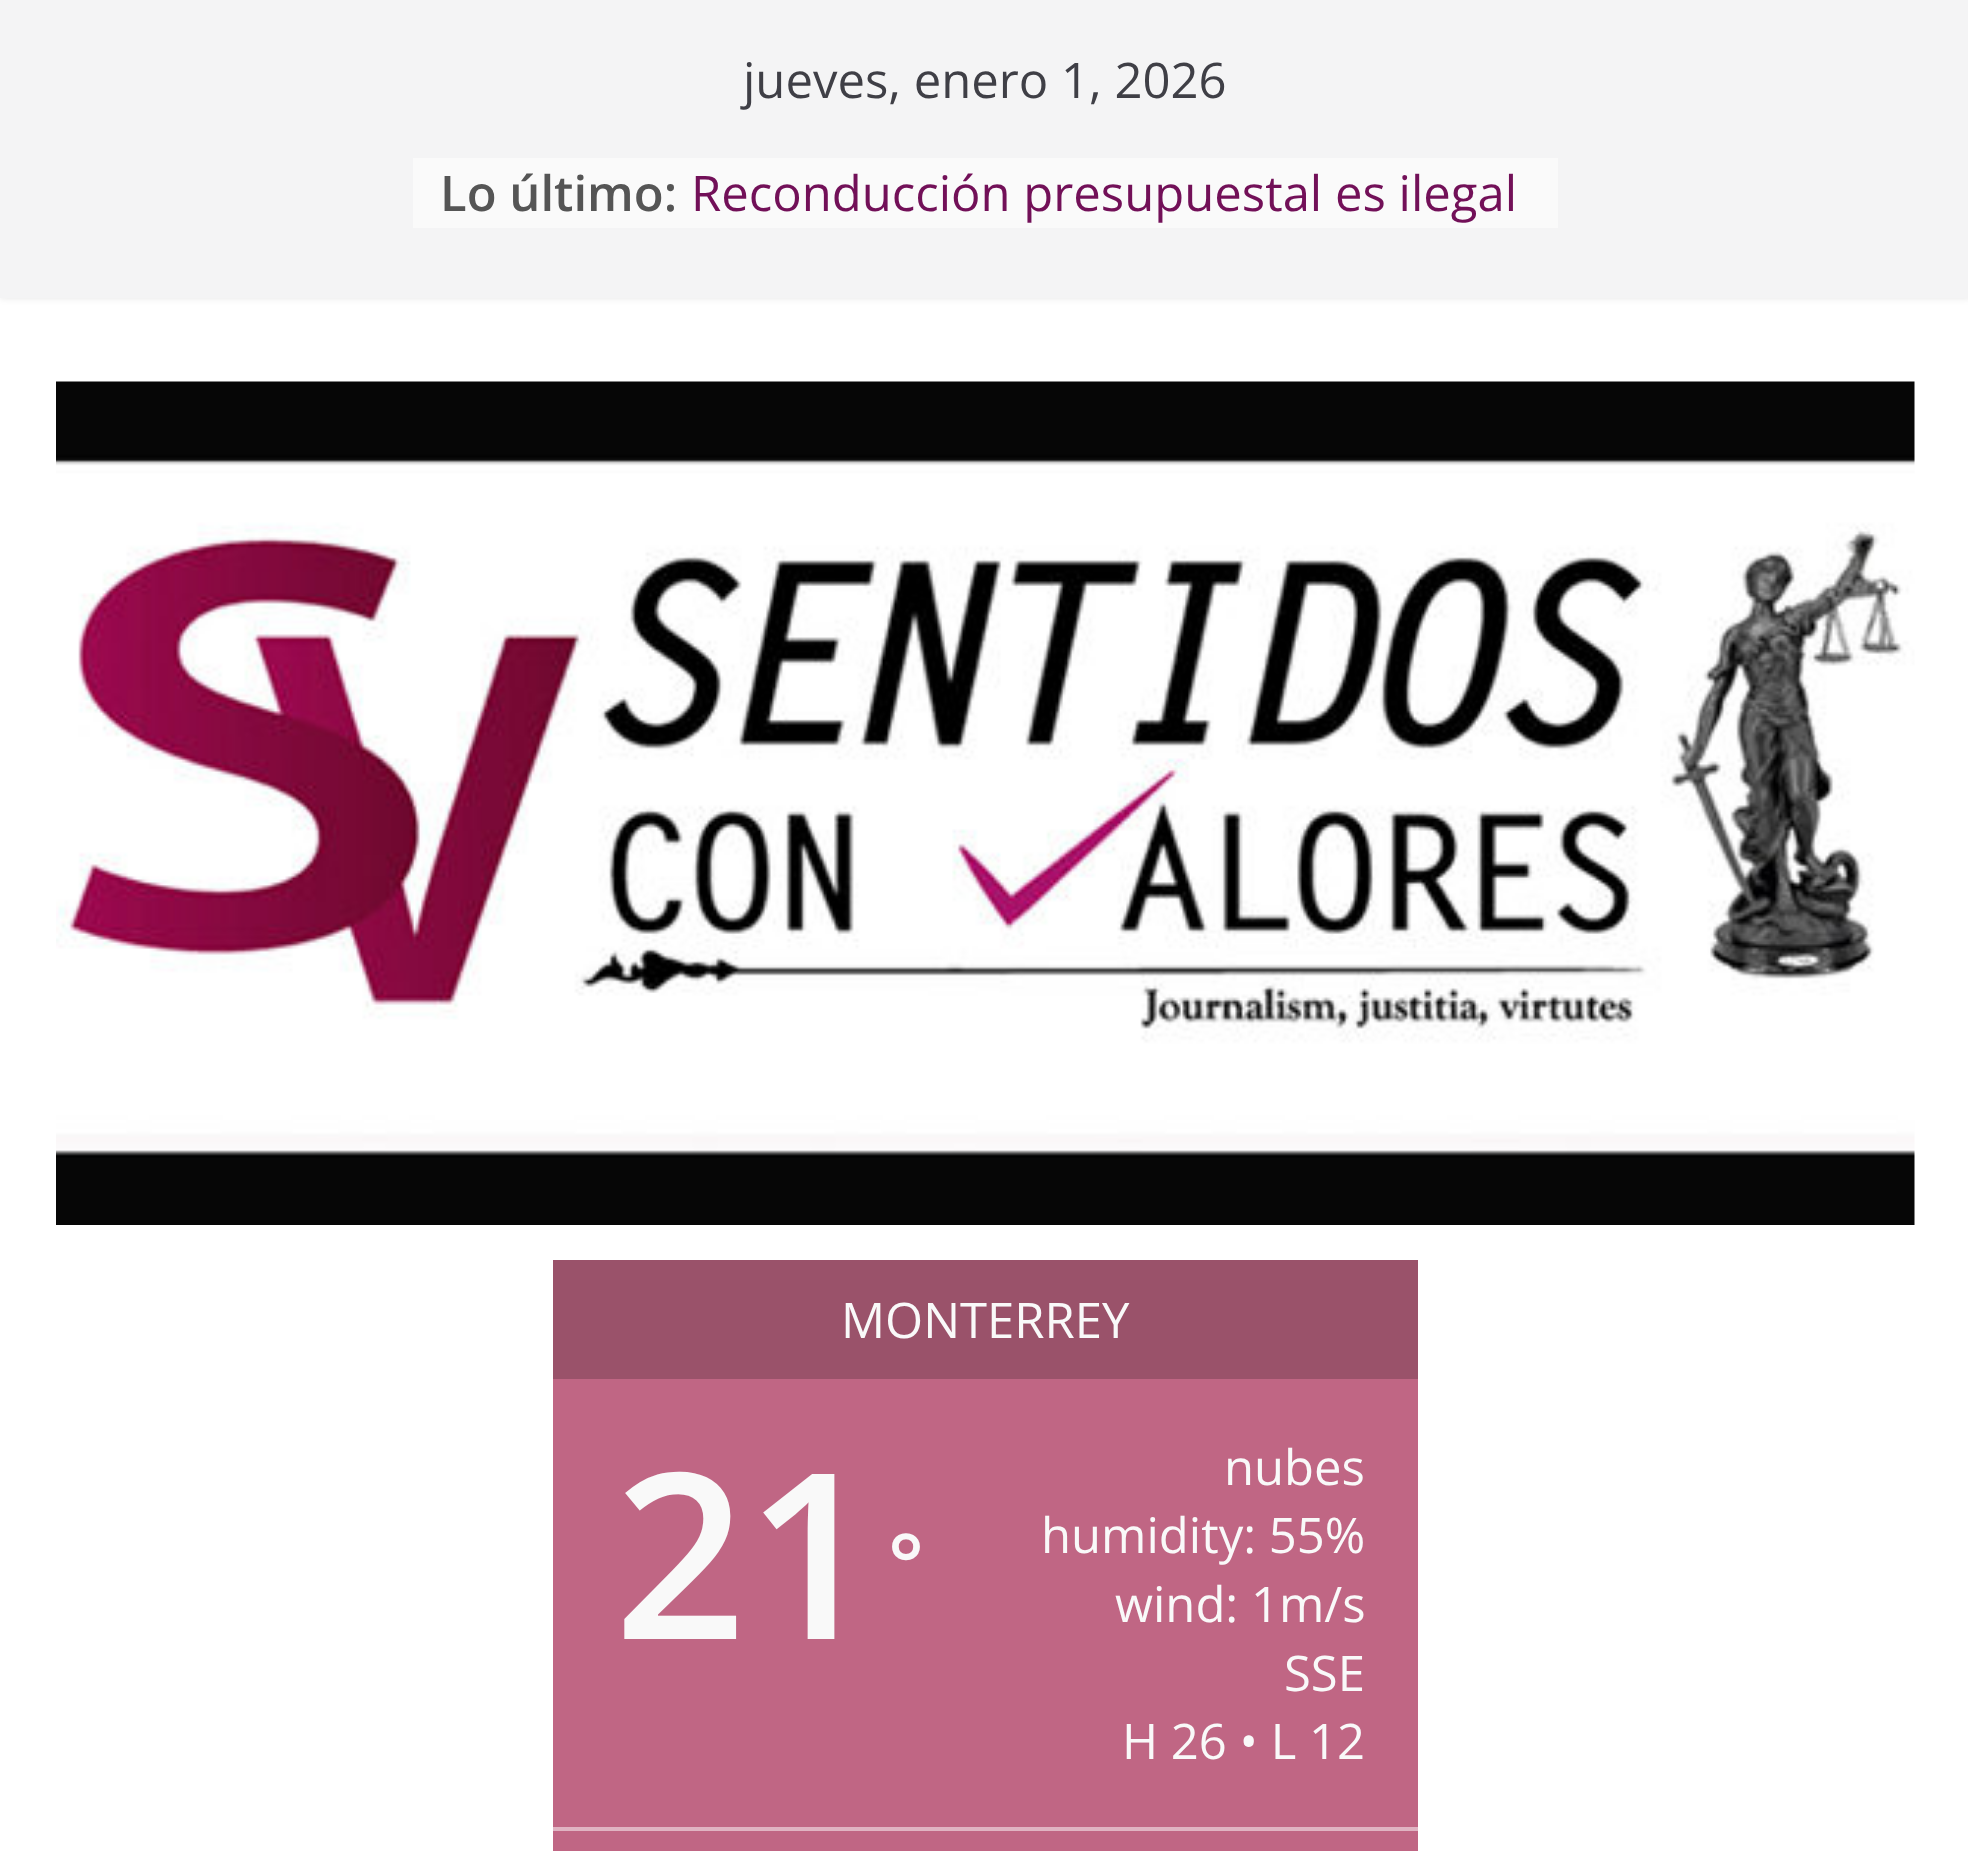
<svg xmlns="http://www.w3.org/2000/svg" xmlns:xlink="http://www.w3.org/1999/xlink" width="1968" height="1851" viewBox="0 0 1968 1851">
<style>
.cls-1{font:49px Open Sans;fill:#3f3f46}
.cls-2{font:600 49px Open Sans;fill:#555555}
.cls-3{font:49px Open Sans;fill:#721058}
.cls-4{font:49px Open Sans;fill:#f9f9f9}
.cls-5{font:600 231px Open Sans;fill:#f9f9f9}
.cls-6{font:600 84px Open Sans;fill:#f9f9f9}
</style>
<rect width="100%" height="100%" fill="#ffffff"/>
<rect fill="#000000" fill-opacity="0.1" filter="blur(3.5px)" x="0" y="0" width="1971" height="298"/>
<rect fill="#f4f4f5" x="0" y="0" width="1968" height="298"/>
<rect fill="#fafafa" x="413" y="158" width="1145" height="70"/>
<image xlink:href="image0.png" x="56" y="381" width="1859" height="844"/>
<rect fill="#c06684" x="553" y="1379" width="865" height="472"/>
<rect fill="#9a526a" x="553" y="1260" width="865" height="119"/>
<rect fill="#e0b3c2" x="553" y="1827" width="865" height="4"/>
<text class="cls-1" x="743" y="98">jueves, enero 1, 2026</text>
<text class="cls-2" x="440" y="211">Lo último:</text>
<text class="cls-3" x="691" y="211">Reconducción presupuestal es ilegal</text>
<text class="cls-4" x="841" y="1338">MONTERREY</text>
<text class="cls-5" x="614" y="1639">21</text>
<text class="cls-6" x="888" y="1594">°</text>
<text class="cls-4" x="1224" y="1485">nubes</text>
<text class="cls-4" x="1041" y="1553">humidity: 55%</text>
<text class="cls-4" x="1115" y="1622">wind: 1m/s</text>
<text class="cls-4" x="1284" y="1691">SSE</text>
<text class="cls-4" x="1122" y="1759">H 26 • L 12</text>
</svg>
